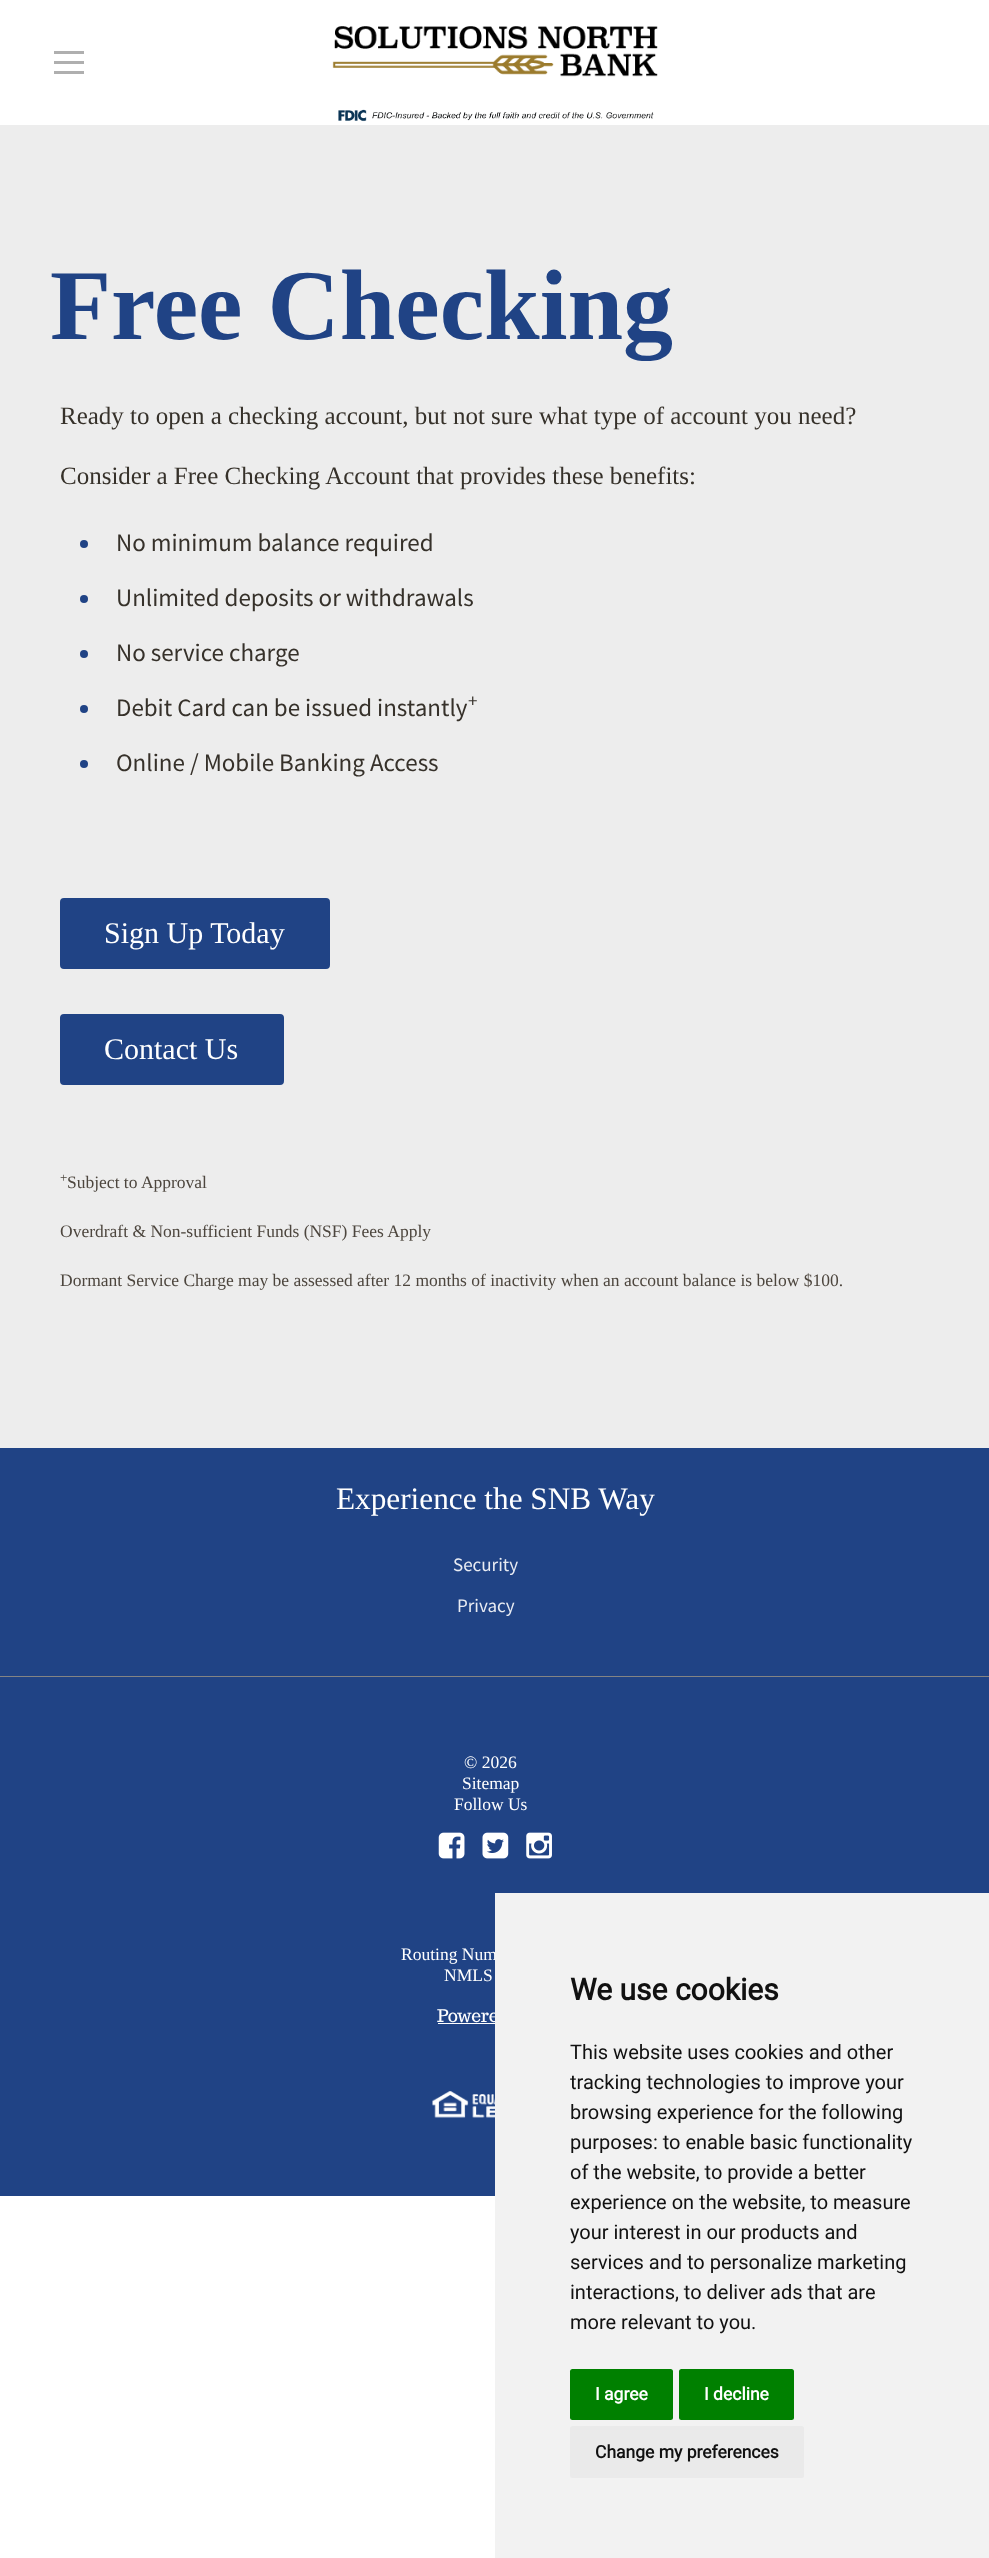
<svg xmlns="http://www.w3.org/2000/svg" xmlns:xlink="http://www.w3.org/1999/xlink" width="989" height="2558" viewBox="0 0 989 2558">
<style>
.cls-1{font:bold 100px Liberation Serif;fill:#204385}
.cls-2{font:25px Liberation Serif;fill:#36312a}
.cls-3{font:25px Source Sans Pro;fill:#36312a}
.cls-4{font:19px Source Sans Pro;fill:#36312a}
.cls-5{font:30px Liberation Serif;fill:#ffffff}
.cls-6{font:13px Liberation Serif;fill:#4d463e}
.cls-7{font:17.5px Liberation Serif;fill:#4d463e}
.cls-8{font:31.25px Liberation Serif;fill:#ffffff}
.cls-9{font:19px Source Sans Pro;fill:#e9ecf3}
.cls-10{font:17.5px Liberation Serif;fill:#ffffff}
.cls-11{font:17.5px Trocchi;fill:#ffffff}
.cls-12{font:bold 30px Roboto;fill:#111111}
.cls-13{font:20px Roboto;fill:#111111}
.cls-14{font:bold 17.5px Roboto;fill:#ffffff}
.cls-15{font:bold 17.5px Roboto;fill:#111111}
</style>
<rect width="100%" height="100%" fill="#ffffff"/>
<rect fill="#afafaf" x="54" y="51" width="30" height="3"/>
<rect fill="#afafaf" x="54" y="71" width="30" height="3"/>
<rect fill="#afafaf" x="54" y="61" width="30" height="3"/>
<image xlink:href="image0.png" x="332" y="26" width="326" height="51"/>
<image xlink:href="image1.png" x="338" y="109" width="316" height="13"/>
<rect fill="#ededed" x="0" y="125" width="989" height="1323"/>
<circle fill="#204385" cx="84" cy="544" r="4"/>
<circle fill="#204385" cx="84" cy="599" r="4"/>
<circle fill="#204385" cx="84" cy="654" r="4"/>
<circle fill="#204385" cx="84" cy="709" r="4"/>
<circle fill="#204385" cx="84" cy="764" r="4"/>
<rect fill="#204385" stroke="#204385" stroke-width="3" x="61.5" y="899.5" width="267" height="68" rx="2.5"/>
<rect fill="#204385" stroke="#204385" stroke-width="3" x="61.5" y="1015.5" width="221" height="68" rx="2.5"/>
<rect fill="#204385" x="0" y="1448" width="989" height="748"/>
<rect fill="#848484" x="0" y="1676" width="989" height="1"/>
<image xlink:href="image2.png" x="438" y="1832" width="27" height="27"/>
<image xlink:href="image3.png" x="482" y="1832" width="27" height="27"/>
<image xlink:href="image4.png" x="526" y="1832" width="26" height="27"/>
<rect fill="#ffffff" x="438" y="2023" width="57" height="1"/>
<image xlink:href="image5.png" x="432" y="2091" width="63" height="27"/>
<text class="cls-1" x="50" y="339">Free Checking</text>
<text class="cls-2" x="60" y="424">Ready to open a checking account, but not sure what type of account you need?</text>
<text class="cls-2" x="60" y="484">Consider a Free Checking Account that provides these benefits:</text>
<text class="cls-3" x="116" y="551">No minimum balance required</text>
<text class="cls-3" x="116" y="606">Unlimited deposits or withdrawals</text>
<text class="cls-3" x="116" y="661">No service charge</text>
<text class="cls-3" x="116" y="716">Debit Card can be issued instantly</text>
<text class="cls-4" x="468" y="707">+</text>
<text class="cls-3" x="116" y="771">Online / Mobile Banking Access</text>
<text class="cls-5" x="104" y="943">Sign Up Today</text>
<text class="cls-5" x="104" y="1059">Contact Us</text>
<text class="cls-6" x="60" y="1182">+</text>
<text class="cls-7" x="67" y="1188">Subject to Approval</text>
<text class="cls-7" x="60" y="1237">Overdraft &amp; Non-sufficient Funds (NSF) Fees Apply</text>
<text class="cls-7" x="60" y="1286">Dormant Service Charge may be assessed after 12 months of inactivity when an account balance is below $100.</text>
<text class="cls-8" x="336" y="1509">Experience the SNB Way</text>
<text class="cls-9" x="453" y="1571">Security</text>
<text class="cls-9" x="457" y="1612">Privacy</text>
<text class="cls-10" x="464" y="1768">© 2026</text>
<text class="cls-10" x="462" y="1789">Sitemap</text>
<text class="cls-10" x="454" y="1810">Follow Us</text>
<text class="cls-10" x="401" y="1960">Routing Num</text>
<text class="cls-10" x="444" y="1981">NMLS</text>
<text class="cls-11" x="437" y="2022">Powere</text>
<rect fill="#f2f2f2" x="495" y="1893" width="494" height="665"/>
<text class="cls-12" x="570" y="2000">We use cookies</text>
<text class="cls-13"><tspan x="570" y="2059">This website uses cookies and other</tspan><tspan x="570" y="2089">tracking technologies to improve your</tspan><tspan x="570" y="2119">browsing experience for the following</tspan><tspan x="570" y="2149">purposes: to enable basic functionality</tspan><tspan x="570" y="2179">of the website, to provide a better</tspan><tspan x="570" y="2209">experience on the website, to measure</tspan><tspan x="570" y="2239">your interest in our products and</tspan><tspan x="570" y="2269">services and to personalize marketing</tspan><tspan x="570" y="2299">interactions, to deliver ads that are</tspan><tspan x="570" y="2329">more relevant to you.</tspan></text>
<rect fill="#008000" x="570" y="2369" width="103" height="51" rx="2.5"/>
<text class="cls-14" x="595" y="2400">I agree</text>
<rect fill="#008000" x="679" y="2369" width="115" height="51" rx="2.5"/>
<text class="cls-14" x="704" y="2400">I decline</text>
<rect fill="#eaeaea" x="570" y="2426" width="234" height="52" rx="2.5"/>
<text class="cls-15" x="595" y="2458">Change my preferences</text>
</svg>
